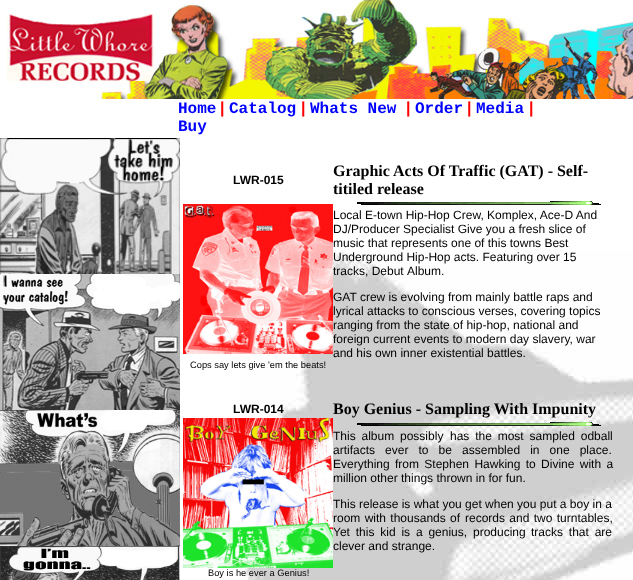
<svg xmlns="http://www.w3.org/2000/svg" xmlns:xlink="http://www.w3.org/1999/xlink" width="633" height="580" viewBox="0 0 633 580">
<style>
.cls-1{font:bold 16px Liberation Mono;fill:#0000ff}
.cls-2{font:bold 16px Liberation Sans;fill:#ff0000}
.cls-3{font:bold 12px Liberation Sans;fill:#000000}
.cls-4{font:bold 16px Liberation Serif;fill:#000000}
.cls-5{font:12px Liberation Sans;fill:#000000}
.cls-6{font:9.3px Liberation Sans;fill:#000000}
</style>
<rect width="100%" height="100%" fill="#ffffff"/>
<image xlink:href="image0.png" x="240" y="250" width="393" height="330"/>
<image xlink:href="image1.png" x="7" y="0" width="626" height="99"/>
<image xlink:href="image2.png" x="0" y="138" width="180" height="136"/>
<image xlink:href="image3.png" x="0" y="274" width="180" height="136"/>
<image xlink:href="image4.png" x="0" y="410" width="180" height="136"/>
<image xlink:href="image5.png" x="0" y="546" width="180" height="34"/>
<image xlink:href="image6.png" x="357" y="201" width="244" height="4"/>
<image xlink:href="image7.png" x="183" y="204" width="150" height="150"/>
<image xlink:href="image8.png" x="183" y="418" width="150" height="150"/>
<image xlink:href="image9.png" x="357" y="422" width="244" height="4"/>
<text class="cls-1" x="178" y="113">Home</text>
<text class="cls-2" x="220" y="113">|</text>
<text class="cls-1" x="229" y="113">Catalog</text>
<text class="cls-2" x="301" y="113">|</text>
<text class="cls-1" x="310" y="113">Whats New</text>
<text class="cls-2" x="406" y="113">|</text>
<text class="cls-1" x="415" y="113">Order</text>
<text class="cls-2" x="467" y="113">|</text>
<text class="cls-1" x="476" y="113">Media</text>
<text class="cls-2" x="529" y="113">|</text>
<text class="cls-1" x="178" y="131">Buy</text>
<text class="cls-3" x="233" y="184">LWR-015</text>
<text class="cls-4"><tspan x="333" y="176">Graphic Acts Of Traffic (GAT) - Self-</tspan><tspan x="333" y="194">titiled release</tspan></text>
<text class="cls-5"><tspan x="333" y="219">Local E-town Hip-Hop Crew, Komplex, Ace-D And</tspan><tspan x="333" y="233">DJ/Producer Specialist Give you a fresh slice of</tspan><tspan x="333" y="247">music that represents one of this towns Best</tspan><tspan x="333" y="261">Underground Hip-Hop acts. Featuring over 15</tspan><tspan x="333" y="275">tracks, Debut</tspan></text>
<text class="cls-5" x="407" y="275">Album.</text>
<text class="cls-5"><tspan x="333" y="301">GAT crew is evolving from mainly battle raps and</tspan><tspan x="333" y="315">lyrical attacks to conscious verses, covering topics</tspan><tspan x="333" y="329">ranging from the state of hip-hop, national and</tspan><tspan x="333" y="343">foreign current events to modern day slavery, war</tspan><tspan x="333" y="357">and his own inner existential battles.</tspan></text>
<text class="cls-6" x="190" y="368">Cops say lets give 'em the beats!</text>
<text class="cls-3" x="233" y="413">LWR-014</text>
<text class="cls-4" x="333" y="414">Boy Genius - Sampling With Impunity</text>
<text class="cls-5" x="333" y="440" word-spacing="2.5">This album possibly</text>
<text class="cls-5" x="450" y="440" word-spacing="2.5">has the most sampled odball</text>
<text class="cls-5"><tspan x="333" y="454" word-spacing="6.75">artifacts ever to be assembled in one place.</tspan><tspan x="333" y="468">Everything</tspan></text>
<text class="cls-5" x="395" y="468" word-spacing="2">from Stephen Hawking to Divine with a</text>
<text class="cls-5" x="333" y="482">million other things thrown in for fun.</text>
<text class="cls-5"><tspan x="333" y="508">This release is what you get when you put a boy in a</tspan><tspan x="333" y="522" word-spacing="1">room with thousands of</tspan></text>
<text class="cls-5" x="465" y="522" word-spacing="1">records and two turntables,</text>
<text class="cls-5" x="333" y="536" word-spacing="2.5">Yet this kid is a genius, producing</text>
<text class="cls-5" x="531" y="536" word-spacing="2.5">tracks that are</text>
<text class="cls-5" x="333" y="550">clever and strange.</text>
<text class="cls-6" x="208" y="576">Boy is he ever a Genius!</text>
</svg>
